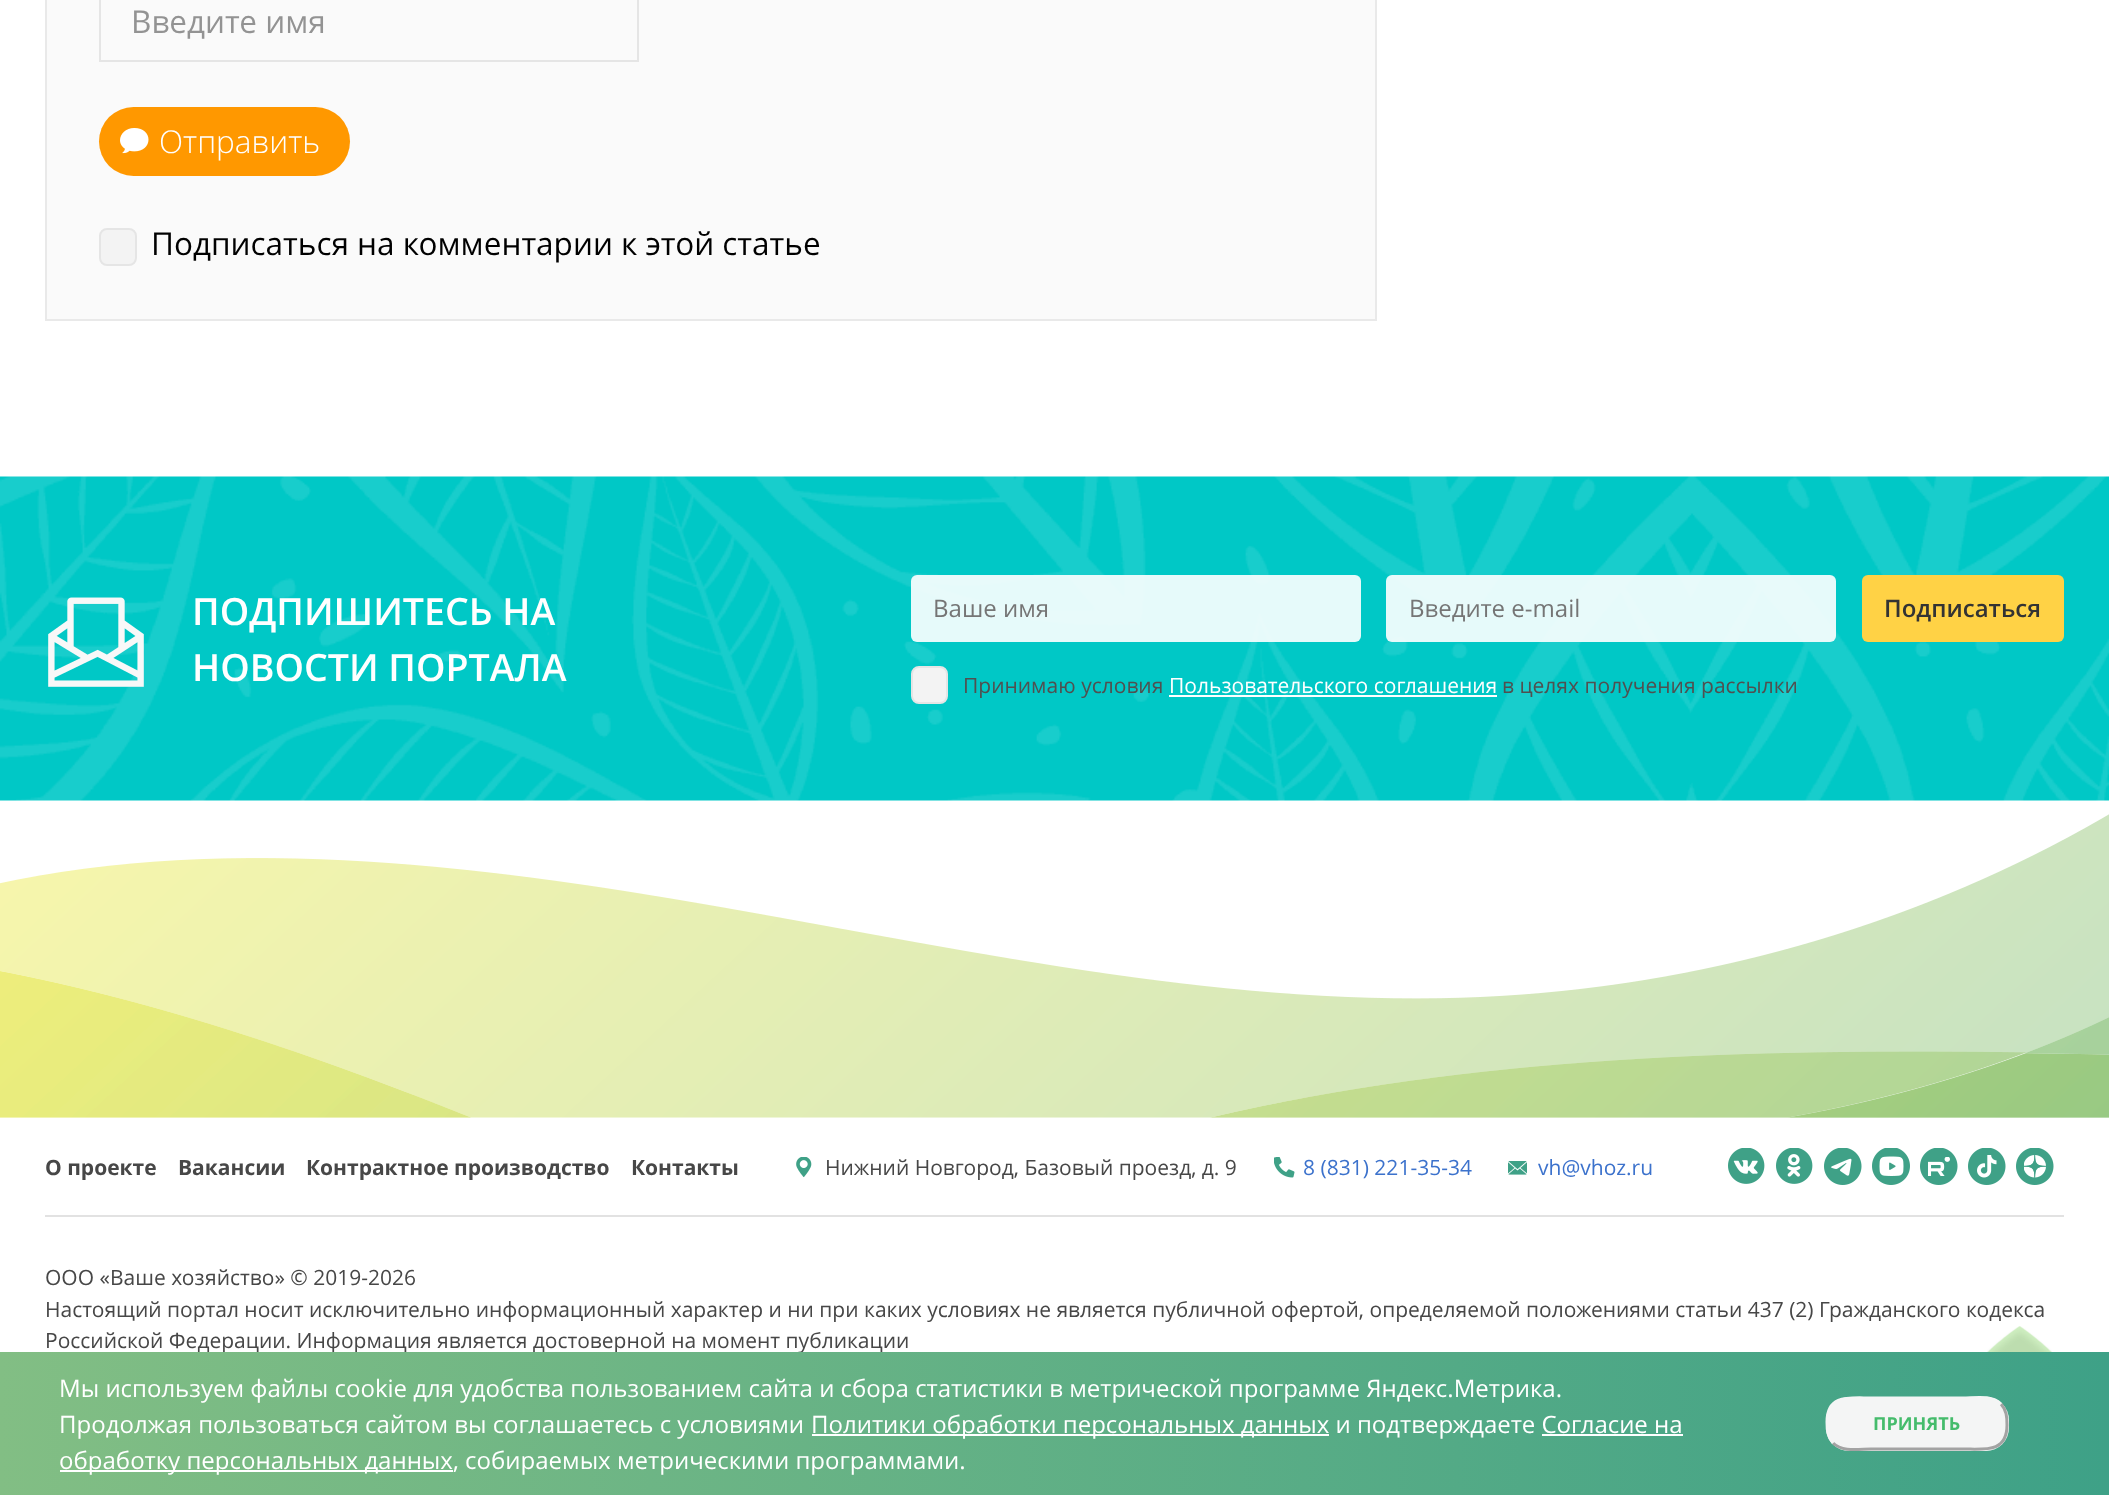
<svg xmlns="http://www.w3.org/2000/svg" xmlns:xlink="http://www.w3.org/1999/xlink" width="2109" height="1495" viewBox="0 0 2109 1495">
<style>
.cls-1{font:31.5px Open Sans;fill:#939393}
.cls-2{font:300 31.5px Open Sans;fill:#ffffff}
.cls-3{font:31.5px Open Sans;fill:#000000}
.cls-4{font:600 37.5px Open Sans;fill:#ffffff}
.cls-5{font:24px Open Sans;fill:#757575}
.cls-6{font:600 24px Open Sans;fill:#333333}
.cls-7{font:21px Open Sans;fill:#505050}
.cls-8{font:21px Open Sans;fill:#ffffff}
.cls-9{font:bold 21px Open Sans;fill:#474747}
.cls-10{font:21px Open Sans;fill:#474747}
.cls-11{font:21px Open Sans;fill:#3c72cc}
.cls-12{font:24px Open Sans;fill:#ffffff}
.cls-13{font:bold 18px Open Sans;fill:#45bc6c}
</style>
<defs>
<linearGradient id="g1" gradientUnits="userSpaceOnUse" x1="0" y1="1424" x2="2109" y2="1424"><stop offset="0" stop-color="#82be84"/><stop offset="1" stop-color="#3ea187"/></linearGradient>
</defs>
<rect width="100%" height="100%" fill="#ffffff"/>
<image xlink:href="image0.png" x="0" y="814" width="2109" height="304"/>
<rect fill="#fafafa" stroke="#e9e9e9" stroke-width="2" x="46" y="-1" width="1330" height="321"/>
<rect fill="none" stroke="#e5e5e5" stroke-width="2" x="100" y="-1" width="538" height="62"/>
<rect fill="#ff9800" x="99" y="107" width="251" height="69" rx="34.5"/>
<image xlink:href="image1.png" x="120" y="128" width="29" height="26"/>
<rect fill="#f3f3f3" stroke="#e5e5e5" stroke-width="2" x="100" y="229" width="36" height="36" rx="7"/>
<image xlink:href="image2.png" x="0" y="476" width="2109" height="325"/>
<image xlink:href="image3.png" x="48" y="597" width="96" height="90"/>
<rect fill="#ffffff" fill-opacity="0.9" x="911" y="575" width="450" height="67" rx="6"/>
<rect fill="#ffffff" fill-opacity="0.9" x="1386" y="575" width="450" height="67" rx="6"/>
<rect fill="#ffd245" x="1862" y="575" width="202" height="67" rx="6"/>
<rect fill="#f3f3f3" stroke="#e5e5e5" stroke-width="2" x="912" y="667" width="35" height="36" rx="7"/>
<rect fill="#ffffff" x="1169" y="695" width="328" height="2"/>
<rect fill="#e2e2e2" x="45" y="1215" width="2019" height="2"/>
<image xlink:href="image4.png" x="796" y="1157" width="16" height="21"/>
<image xlink:href="image5.png" x="1274" y="1157" width="21" height="21"/>
<image xlink:href="image6.png" x="1508" y="1161" width="19" height="14"/>
<image xlink:href="image7.png" x="1728" y="1148" width="37" height="36"/>
<image xlink:href="image8.png" x="1776" y="1148" width="37" height="36"/>
<image xlink:href="image9.png" x="1824" y="1148" width="38" height="37"/>
<image xlink:href="image10.png" x="1872" y="1148" width="38" height="37"/>
<image xlink:href="image11.png" x="1920" y="1148" width="38" height="37"/>
<image xlink:href="image12.png" x="1968" y="1148" width="38" height="37"/>
<image xlink:href="image13.png" x="2016" y="1148" width="38" height="37"/>
<image xlink:href="image14.png" x="1987" y="1326" width="65" height="26"/>
<text class="cls-1" x="131" y="33">Введите имя</text>
<text class="cls-2" x="159" y="153">Отправить</text>
<text class="cls-3" x="151" y="255">Подписаться на комментарии к этой статье</text>
<text class="cls-4"><tspan x="192" y="625">ПОДПИШИТЕСЬ НА</tspan><tspan x="192" y="681">НОВОСТИ ПОРТАЛА</tspan></text>
<text class="cls-5" x="933" y="617">Ваше имя</text>
<text class="cls-5" x="1409" y="617">Введите e-mail</text>
<text class="cls-6" x="1884" y="617">Подписаться</text>
<text class="cls-7" x="963" y="693">Принимаю условия</text>
<text class="cls-8" x="1169" y="693">Пользовательского соглашения</text>
<text class="cls-7" x="1502" y="693">в целях получения рассылки</text>
<text class="cls-9" x="45" y="1175">О проекте</text>
<text class="cls-9" x="178" y="1175">Вакансии</text>
<text class="cls-9" x="306" y="1175">Контрактное производство</text>
<text class="cls-9" x="631" y="1175">Контакты</text>
<text class="cls-10" x="825" y="1175">Нижний Новгород, Базовый проезд, д. 9</text>
<text class="cls-11" x="1303" y="1175">8 (831) 221-35-34</text>
<text class="cls-11" x="1538" y="1175">vh@vhoz.ru</text>
<text class="cls-10"><tspan x="45" y="1285">ООО «Ваше хозяйство» © 2019-2026</tspan><tspan x="45" y="1317">Настоящий портал носит исключительно информационный характер и ни при каких условиях не является публичной офертой, определяемой положениями статьи 437 (2) Гражданского кодекса</tspan><tspan x="45" y="1348">Российской Федерации. Информация является достоверной на момент публикации</tspan></text>
<rect fill="url(#g1)" x="0" y="1352" width="2109" height="143"/>
<text class="cls-12"><tspan x="59" y="1397">Мы используем файлы cookie для удобства пользованием сайта и сбора статистики в метрической программе Яндекс.Метрика.</tspan><tspan x="59" y="1433">Продолжая пользоваться сайтом вы соглашаетесь с условиями</tspan></text>
<rect fill="#ffffff" x="812" y="1434" width="517" height="2"/>
<text class="cls-12" x="811" y="1433">Политики обработки персональных данных и подтверждаете Согласие на</text>
<rect fill="#ffffff" x="1542" y="1434" width="141" height="2"/>
<rect fill="#ffffff" x="60" y="1470" width="393" height="2"/>
<text class="cls-12" x="59" y="1469">обработку персональных данных, собираемых метрическими программами.</text>
<rect fill="#f4f5f5" x="1826" y="1397" width="183" height="54" rx="23"/>
<path fill="none" stroke="#a3a3a3" stroke-width="3" d="M2001 1404C2006.5 1410 2007 1417 2007 1425C2007 1453 1984.5 1449 1963 1449H1871C1859.5 1449 1842.5 1452.5 1833 1443"/>
<path fill="none" stroke="#f4f5f5" stroke-width="3" d="M1833 1443C1827.5 1437 1827 1430 1827 1422C1827 1394 1849.5 1398 1871 1398H1963C1974.5 1398 1991.5 1394.5 2001 1404"/>
<text class="cls-13" x="1873" y="1430">ПРИНЯТЬ</text>
</svg>
